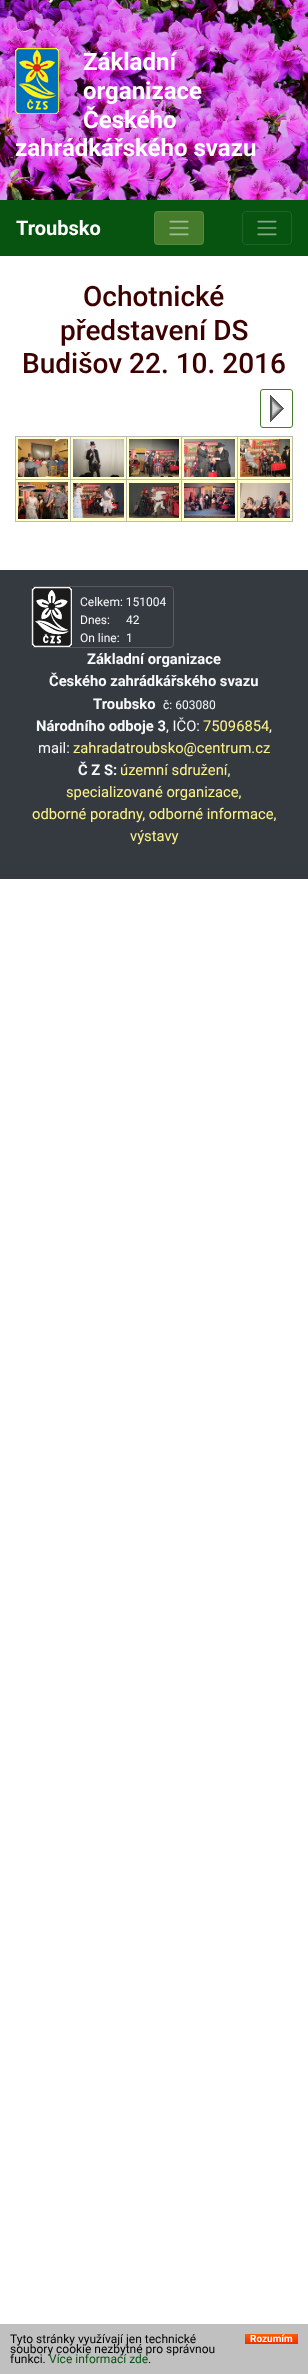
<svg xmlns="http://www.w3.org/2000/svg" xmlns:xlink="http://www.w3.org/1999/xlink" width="308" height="2374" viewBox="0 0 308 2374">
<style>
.cls-1{font:bold 24px Roboto;fill:#ffffff}
.cls-2{font:bold 20px Roboto;fill:#ffffff}
.cls-3{font:500 28px Roboto;fill:#3c0000}
.cls-4{font:12px Roboto;fill:#f8f9fa}
.cls-5{font:bold 14.75px Roboto;fill:#f8f9fa}
.cls-6{font:14.75px Roboto;fill:#f8f9fa}
.cls-7{font:14.75px Roboto;fill:#fff38d}
.cls-8{font:12px Roboto;fill:#000000}
.cls-9{font:12px Roboto;fill:#075310}
.cls-10{font:bold 10px Roboto;fill:#ffffff}
</style>
<defs>
<linearGradient id="g1" gradientUnits="userSpaceOnUse" x1="272" y1="2334" x2="272" y2="2344"><stop offset="0" stop-color="#f86000"/><stop offset="1" stop-color="#f32b00"/></linearGradient>
</defs>
<rect width="100%" height="100%" fill="#ffffff"/>
<image xlink:href="image0.png" x="0" y="0" width="308" height="200"/>
<image xlink:href="image1.png" x="15" y="48" width="44" height="66"/>
<rect fill="#075310" x="0" y="200" width="308" height="56"/>
<rect fill="#457b2a" x="154" y="211" width="50" height="34" rx="4"/>
<rect fill="none" stroke="#ffffff" stroke-opacity="0.1" x="154.5" y="211.5" width="49" height="33" rx="3.5"/>
<image xlink:href="image2.png" x="169" y="220" width="20" height="16"/>
<rect fill="none" stroke="#206428" x="242.5" y="211.5" width="49" height="33" rx="3.5"/>
<image xlink:href="image3.png" x="257" y="220" width="20" height="16"/>
<rect fill="none" stroke="#457b2a" x="260.5" y="389.5" width="32" height="38" rx="2.5"/>
<image xlink:href="image4.png" x="270" y="395" width="14" height="27"/>
<rect fill="#bababa" x="15" y="436" width="278" height="1"/>
<rect fill="#bababa" x="15" y="436" width="1" height="86"/>
<rect fill="#ffffcb" x="16" y="437" width="54" height="42"/>
<rect fill="#bababa" x="292" y="436" width="1" height="86"/>
<rect fill="#bababa" x="237" y="521" width="56" height="1"/>
<rect fill="#bababa" x="237" y="479" width="1" height="43"/>
<rect fill="#bababa" x="237" y="479" width="56" height="1"/>
<rect fill="#bababa" x="237" y="436" width="1" height="44"/>
<rect fill="#bababa" x="181" y="521" width="57" height="1"/>
<rect fill="#bababa" x="181" y="479" width="1" height="43"/>
<rect fill="#bababa" x="181" y="479" width="57" height="1"/>
<rect fill="#bababa" x="181" y="436" width="1" height="44"/>
<rect fill="#bababa" x="126" y="521" width="56" height="1"/>
<rect fill="#bababa" x="126" y="479" width="1" height="43"/>
<rect fill="#bababa" x="126" y="479" width="56" height="1"/>
<rect fill="#bababa" x="126" y="436" width="1" height="44"/>
<rect fill="#bababa" x="70" y="521" width="57" height="1"/>
<rect fill="#bababa" x="70" y="479" width="1" height="43"/>
<rect fill="#bababa" x="70" y="479" width="57" height="1"/>
<rect fill="#bababa" x="70" y="436" width="1" height="44"/>
<rect fill="#bababa" x="15" y="479" width="56" height="1"/>
<image xlink:href="image5.png" x="18" y="439" width="50" height="38"/>
<rect fill="#ffffcb" x="71" y="437" width="55" height="42"/>
<image xlink:href="image6.png" x="73" y="439" width="51" height="38"/>
<rect fill="#ffffcb" x="127" y="437" width="54" height="42"/>
<image xlink:href="image7.png" x="129" y="439" width="50" height="38"/>
<rect fill="#ffffcb" x="182" y="437" width="55" height="42"/>
<image xlink:href="image8.png" x="184" y="439" width="51" height="38"/>
<rect fill="#ffffcb" x="238" y="437" width="54" height="42"/>
<image xlink:href="image9.png" x="240" y="439" width="50" height="38"/>
<rect fill="#ffffcb" x="16" y="480" width="54" height="41"/>
<rect fill="#bababa" x="15" y="521" width="56" height="1"/>
<image xlink:href="image10.png" x="18" y="482" width="50" height="37"/>
<rect fill="#ffffcb" x="71" y="480" width="55" height="41"/>
<image xlink:href="image11.png" x="73" y="483" width="51" height="35"/>
<rect fill="#ffffcb" x="127" y="480" width="54" height="41"/>
<image xlink:href="image12.png" x="129" y="483" width="50" height="35"/>
<rect fill="#ffffcb" x="182" y="480" width="55" height="41"/>
<image xlink:href="image13.png" x="184" y="483" width="51" height="35"/>
<rect fill="#ffffcb" x="238" y="480" width="54" height="41"/>
<image xlink:href="image14.png" x="240" y="483" width="50" height="35"/>
<rect fill="#343a40" x="0" y="570" width="308" height="309"/>
<rect fill="none" stroke="#5a5a5a" x="31.5" y="586.5" width="142" height="61" rx="3.5"/>
<image xlink:href="image15.png" x="32" y="587" width="40" height="60"/>
<rect fill="#c0c0c0" x="0" y="2324" width="308" height="50"/>
<rect fill="url(#g1)" x="245" y="2334" width="53" height="10"/>
<text class="cls-1"><tspan x="83" y="70">Základní</tspan><tspan x="83" y="99">organizace</tspan><tspan x="83" y="128">Českého</tspan></text>
<text class="cls-1" x="15" y="156">zahrádkářského svazu</text>
<text class="cls-2" x="16" y="235">Troubsko</text>
<text class="cls-3" x="83" y="306">Ochotnické</text>
<text class="cls-3" x="60" y="340">představení DS</text>
<text class="cls-3" x="22" y="373">Budišov 22. 10. 2016</text>
<text class="cls-4"><tspan x="80" y="606">Celkem: 151004</tspan><tspan x="80" y="624">Dnes:</tspan><tspan x="80" y="642">On line:</tspan></text>
<text class="cls-4"><tspan x="126" y="624">42</tspan><tspan x="126" y="642">1</tspan></text>
<text class="cls-5" x="87" y="664">Základní organizace</text>
<text class="cls-5" x="49" y="686">Českého zahrádkářského svazu</text>
<text class="cls-5" x="93" y="709">Troubsko</text>
<text class="cls-4" x="163" y="709">č: 603080</text>
<text class="cls-5" x="36" y="731">Národního odboje 3</text>
<text class="cls-6" x="166" y="731">, IČO:</text>
<text class="cls-7" x="203" y="731">75096854</text>
<text class="cls-6" x="269" y="731">,</text>
<text class="cls-6" x="38" y="753">mail:</text>
<text class="cls-7" x="73" y="753">zahradatroubsko@centrum.cz</text>
<text class="cls-5" x="78" y="775">Č Z S:</text>
<text class="cls-7" x="120" y="775">územní sdružení,</text>
<text class="cls-7" x="66" y="797">specializované organizace,</text>
<text class="cls-7" x="32" y="819">odborné poradny, odborné informace,</text>
<text class="cls-7" x="130" y="841">výstavy</text>
<text class="cls-8"><tspan x="10" y="2343">Tyto stránky využívají jen technické</tspan><tspan x="10" y="2353">soubory cookie nezbytné pro správnou</tspan><tspan x="10" y="2363">funkci.</tspan></text>
<text class="cls-9" x="49" y="2363">Více informací zde</text>
<text class="cls-8" x="148" y="2363">.</text>
<text class="cls-10" x="250" y="2342">Rozumím</text>
</svg>
